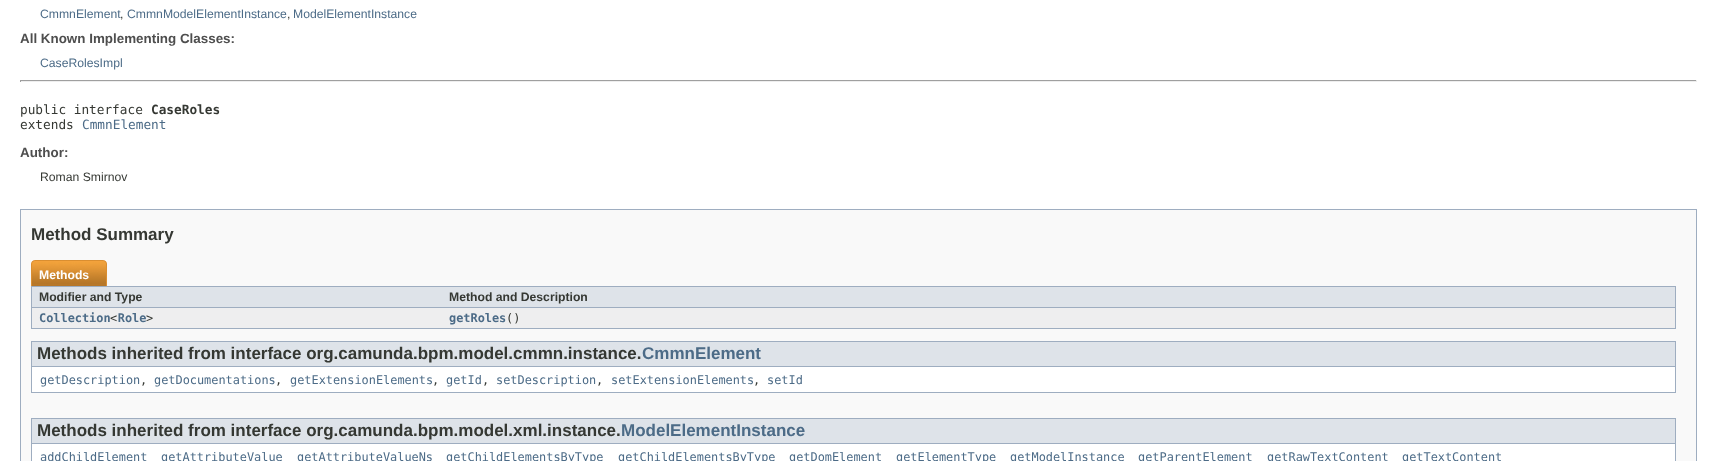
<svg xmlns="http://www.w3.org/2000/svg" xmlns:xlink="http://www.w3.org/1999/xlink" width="1717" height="461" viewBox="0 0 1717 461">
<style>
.cls-1{font:12.2px Liberation Sans;fill:#4c6b87}
.cls-2{font:12.2px Liberation Sans;fill:#353833}
.cls-3{font:bold 13.4px Liberation Sans;fill:#4e4e4e}
.cls-4{font:12.75px DejaVu Sans Mono;fill:#353833}
.cls-5{font:bold 12.75px DejaVu Sans Mono;fill:#353833}
.cls-6{font:12.75px DejaVu Sans Mono;fill:#4c6b87}
.cls-7{font:bold 17px Liberation Sans;fill:#353833}
.cls-8{font:bold 12.2px Liberation Sans;fill:#ffffff}
.cls-9{font:bold 12.2px Liberation Sans;fill:#353833}
.cls-10{font:bold 11.9px DejaVu Sans Mono;fill:#4c6b87}
.cls-11{font:11.9px DejaVu Sans Mono;fill:#353833}
.cls-12{font:bold 17px Liberation Sans;fill:#4c6b87}
.cls-13{font:11.9px DejaVu Sans Mono;fill:#4c6b87}
</style>
<rect width="100%" height="100%" fill="#ffffff"/>
<rect fill="#9f9f9f" x="20" y="80" width="1677" height="1"/>
<rect fill="#eeeeee" x="1696" y="80" width="1" height="2"/>
<rect fill="#eeeeee" x="20" y="81" width="1677" height="1"/>
<rect fill="#9f9f9f" x="20" y="80" width="1" height="2"/>
<rect fill="#f9f9f9" stroke="#9eadc0" x="20.5" y="209.5" width="1676" height="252"/>
<rect fill="#9eadc0" x="31" y="328" width="1645" height="1"/>
<image xlink:href="image0.png" x="31" y="260" width="58" height="26"/>
<image xlink:href="image1.png" x="89" y="260" width="18" height="26"/>
<rect fill="#dee3e9" x="32" y="287" width="1643" height="20"/>
<rect fill="#9eadc0" x="31" y="286" width="1645" height="1"/>
<rect fill="#9eadc0" x="31" y="307" width="411" height="1"/>
<rect fill="#9eadc0" x="31" y="286" width="1" height="42"/>
<rect fill="#9eadc0" x="1675" y="286" width="1" height="42"/>
<rect fill="#9eadc0" x="442" y="307" width="1234" height="1"/>
<rect fill="#eeeeef" x="32" y="308" width="1643" height="20"/>
<rect fill="#ffffff" x="32" y="367" width="1643" height="25"/>
<rect fill="#9eadc0" x="1675" y="341" width="1" height="52"/>
<rect fill="#9eadc0" x="31" y="392" width="1645" height="1"/>
<rect fill="#9eadc0" x="31" y="341" width="1" height="52"/>
<rect fill="#dee3e9" x="32" y="342" width="1643" height="24"/>
<rect fill="#9eadc0" x="32" y="341" width="1643" height="1"/>
<rect fill="#9eadc0" x="32" y="366" width="1643" height="1"/>
<rect fill="#ffffff" x="32" y="444" width="1643" height="17"/>
<rect fill="#9eadc0" x="1675" y="418" width="1" height="43"/>
<rect fill="#9eadc0" x="31" y="418" width="1" height="43"/>
<rect fill="#dee3e9" x="32" y="419" width="1643" height="24"/>
<rect fill="#9eadc0" x="32" y="418" width="1643" height="1"/>
<rect fill="#9eadc0" x="32" y="443" width="1643" height="1"/>
<text class="cls-1" x="40" y="18">CmmnElement</text>
<text class="cls-2" x="120" y="18">,</text>
<text class="cls-1" x="127" y="18">CmmnModelElementInstance</text>
<text class="cls-2" x="287" y="18">,</text>
<text class="cls-1" x="293" y="18">ModelElementInstance</text>
<text class="cls-3" x="20" y="43">All Known Implementing Classes:</text>
<text class="cls-1" x="40" y="67">CaseRolesImpl</text>
<text class="cls-4" x="20" y="114">public interface</text>
<text class="cls-5" x="151" y="114">CaseRoles</text>
<text class="cls-4" x="20" y="129">extends</text>
<text class="cls-6" x="82" y="129">CmmnElement</text>
<text class="cls-3" x="20" y="157">Author:</text>
<text class="cls-2" x="40" y="181">Roman Smirnov</text>
<text class="cls-7" x="31" y="240">Method Summary</text>
<text class="cls-8" x="39" y="279">Methods</text>
<text class="cls-9" x="39" y="301">Modifier and Type</text>
<text class="cls-9" x="449" y="301">Method and Description</text>
<text class="cls-10" x="39" y="322">Collection Role</text>
<text class="cls-11" x="110" y="322">&lt;</text>
<text class="cls-11" x="146" y="322">&gt;</text>
<text class="cls-10" x="449" y="322">getRoles</text>
<text class="cls-11" x="506" y="322">()</text>
<text class="cls-7" x="37" y="359">Methods inherited from interface org.camunda.bpm.model.cmmn.instance.</text>
<text class="cls-12" x="642" y="359">CmmnElement</text>
<text class="cls-13" x="40" y="384">getDescription</text>
<text class="cls-11" x="140" y="384">,</text>
<text class="cls-13" x="154" y="384">getDocumentations</text>
<text class="cls-11" x="275" y="384">,</text>
<text class="cls-13" x="290" y="384">getExtensionElements</text>
<text class="cls-11" x="432" y="384">,</text>
<text class="cls-13" x="446" y="384">getId</text>
<text class="cls-11" x="482" y="384">,</text>
<text class="cls-13" x="496" y="384">setDescription</text>
<text class="cls-11" x="596" y="384">,</text>
<text class="cls-13" x="611" y="384">setExtensionElements</text>
<text class="cls-11" x="753" y="384">,</text>
<text class="cls-13" x="767" y="384">setId</text>
<text class="cls-7" x="37" y="436">Methods inherited from interface org.camunda.bpm.model.xml.instance.</text>
<text class="cls-12" x="621" y="436">ModelElementInstance</text>
<text class="cls-13" x="40" y="461">addChildElement</text>
<text class="cls-13" x="161" y="461">getAttributeValue</text>
<text class="cls-13" x="297" y="461">getAttributeValueNs</text>
<text class="cls-13" x="446" y="461">getChildElementsByType</text>
<text class="cls-13" x="618" y="461">getChildElementsByType</text>
<text class="cls-13" x="789" y="461">getDomElement</text>
<text class="cls-13" x="896" y="461">getElementType</text>
<text class="cls-13" x="1010" y="461">getModelInstance</text>
<text class="cls-13" x="1138" y="461">getParentElement</text>
<text class="cls-13" x="1267" y="461">getRawTextContent</text>
<text class="cls-13" x="1402" y="461">getTextContent</text>
</svg>
